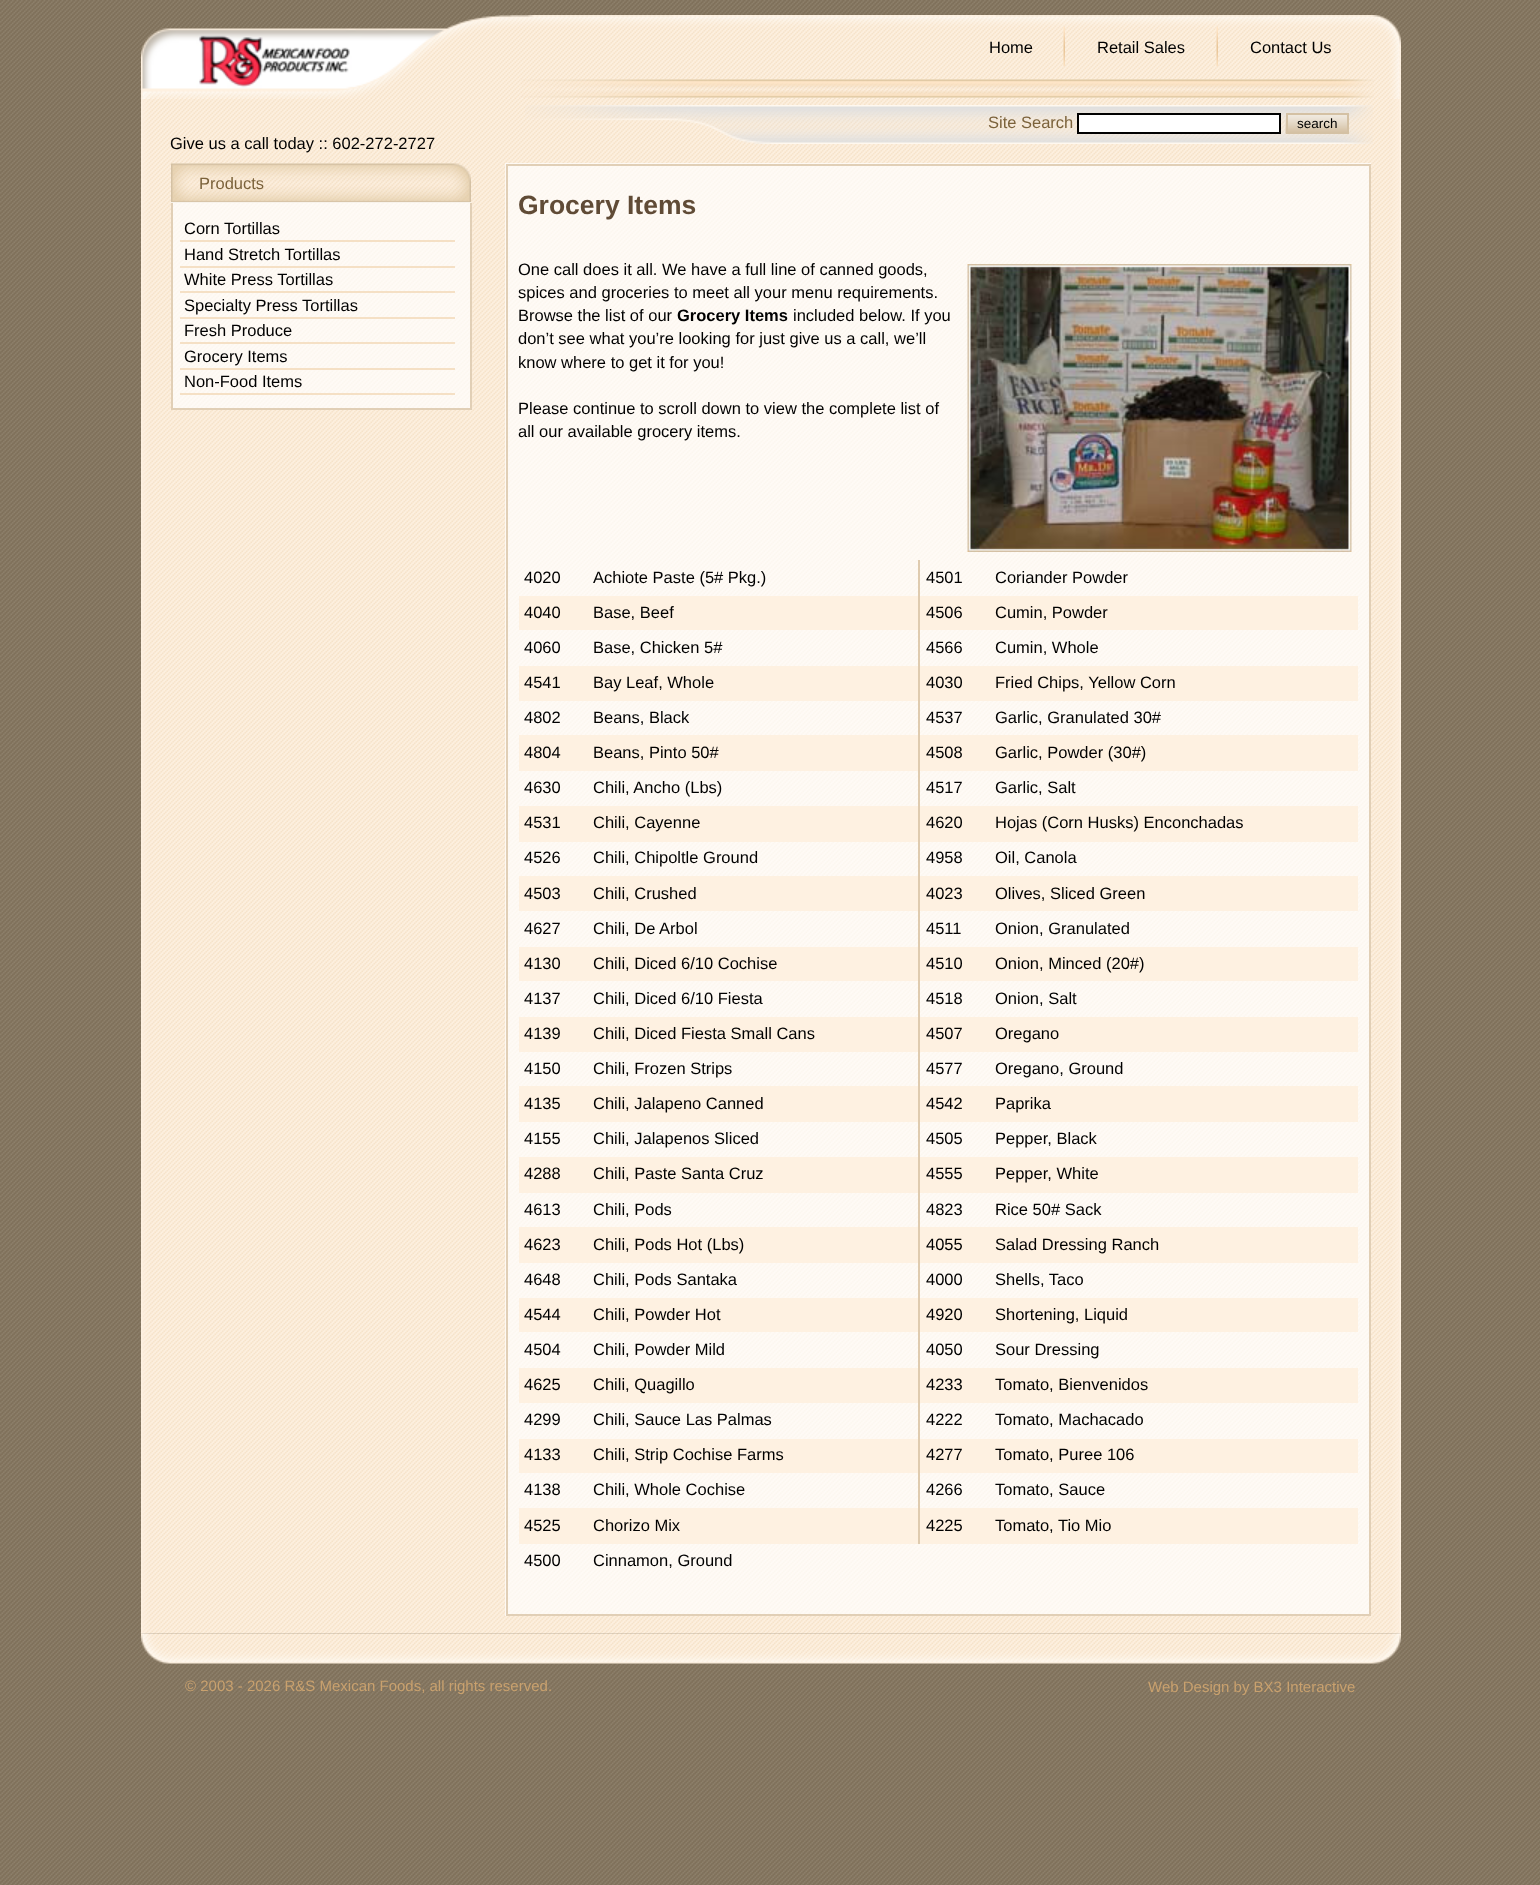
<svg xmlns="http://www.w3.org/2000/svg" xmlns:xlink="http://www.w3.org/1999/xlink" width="1540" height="1885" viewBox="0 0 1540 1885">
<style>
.cls-1{font:16.5px Liberation Sans;fill:#000000}
.cls-2{font:16.5px Liberation Sans;fill:#7b623b}
.cls-3{font:13.5px Liberation Sans;fill:#000000}
.cls-4{font:bold 26.5px Liberation Sans;fill:#604b36}
.cls-5{font:bold 16.5px Liberation Sans;fill:#000000}
.cls-6{font:15px Liberation Sans;fill:#c9a16e}
</style>
<rect width="100%" height="100%" fill="#ffffff"/>
<image xlink:href="image0.png" x="0" y="0" width="1540" height="1885"/>
<image xlink:href="image1.png" x="141" y="15" width="1260" height="84"/>
<image xlink:href="image2.png" x="1063" y="27" width="2" height="39"/>
<image xlink:href="image2.png" x="1216" y="27" width="2" height="39"/>
<image xlink:href="image3.png" x="521" y="79" width="853" height="19"/>
<image xlink:href="image4.png" x="141" y="99" width="1260" height="1535"/>
<image xlink:href="image5.png" x="141" y="99" width="1260" height="1535"/>
<image xlink:href="image6.png" x="525" y="105" width="848" height="39"/>
<rect fill="#ffffff" stroke="#000000" stroke-width="2" x="1078" y="114" width="202" height="19"/>
<image xlink:href="image7.png" x="1285" y="114" width="62" height="20"/>
<rect fill="none" stroke="#d4c1a4" stroke-width="2" x="1287" y="114" width="61" height="19"/>
<image xlink:href="image8.png" x="171" y="163" width="300" height="40"/>
<rect fill="#ffffff" fill-opacity="0.7" x="171" y="202" width="300" height="206"/>
<rect fill="#e1cfb6" x="470" y="203" width="2" height="207"/>
<rect fill="#e1cfb6" x="171" y="408" width="300" height="2"/>
<rect fill="#e1cfb6" x="171" y="203" width="2" height="207"/>
<rect fill="#f5e0c5" x="180" y="240" width="275" height="2"/>
<rect fill="#f5e0c5" x="180" y="266" width="275" height="2"/>
<rect fill="#f5e0c5" x="180" y="291" width="275" height="2"/>
<rect fill="#f5e0c5" x="180" y="317" width="275" height="2"/>
<rect fill="#f5e0c5" x="180" y="342" width="275" height="2"/>
<rect fill="#f5e0c5" x="180" y="368" width="275" height="2"/>
<rect fill="#f5e0c5" x="180" y="393" width="275" height="2"/>
<rect fill="#ffffff" fill-opacity="0.7" x="505" y="163" width="866" height="1453"/>
<rect fill="none" stroke="#e1cfb6" stroke-width="2" x="507" y="165" width="863" height="1450"/>
<image xlink:href="image9.png" x="967" y="264" width="385" height="288"/>
<rect fill="#dfcbaf" x="918" y="560" width="2" height="984"/>
<rect fill="#fef1e1" x="519" y="596" width="399" height="34"/>
<rect fill="#fef1e1" x="920" y="596" width="438" height="34"/>
<rect fill="#fef1e1" x="519" y="666" width="399" height="35"/>
<rect fill="#fef1e1" x="920" y="666" width="438" height="35"/>
<rect fill="#fef1e1" x="519" y="735" width="399" height="36"/>
<rect fill="#fef1e1" x="920" y="735" width="438" height="36"/>
<rect fill="#fef1e1" x="519" y="806" width="399" height="36"/>
<rect fill="#fef1e1" x="920" y="806" width="438" height="36"/>
<rect fill="#fef1e1" x="519" y="876" width="399" height="35"/>
<rect fill="#fef1e1" x="920" y="876" width="438" height="35"/>
<rect fill="#fef1e1" x="519" y="947" width="399" height="34"/>
<rect fill="#fef1e1" x="920" y="947" width="438" height="34"/>
<rect fill="#fef1e1" x="519" y="1017" width="399" height="35"/>
<rect fill="#fef1e1" x="920" y="1017" width="438" height="35"/>
<rect fill="#fef1e1" x="519" y="1086" width="399" height="36"/>
<rect fill="#fef1e1" x="920" y="1086" width="438" height="36"/>
<rect fill="#fef1e1" x="519" y="1157" width="399" height="36"/>
<rect fill="#fef1e1" x="920" y="1157" width="438" height="36"/>
<rect fill="#fef1e1" x="519" y="1227" width="399" height="36"/>
<rect fill="#fef1e1" x="920" y="1227" width="438" height="36"/>
<rect fill="#fef1e1" x="519" y="1298" width="399" height="34"/>
<rect fill="#fef1e1" x="920" y="1298" width="438" height="34"/>
<rect fill="#fef1e1" x="519" y="1368" width="399" height="35"/>
<rect fill="#fef1e1" x="920" y="1368" width="438" height="35"/>
<rect fill="#fef1e1" x="519" y="1439" width="399" height="34"/>
<rect fill="#fef1e1" x="920" y="1439" width="438" height="34"/>
<rect fill="#fef1e1" x="519" y="1508" width="399" height="36"/>
<rect fill="#fef1e1" x="920" y="1508" width="438" height="36"/>
<image xlink:href="image10.png" x="141" y="1633" width="1260" height="31"/>
<text class="cls-1" x="989" y="53">Home</text>
<text class="cls-1" x="1097" y="53">Retail Sales</text>
<text class="cls-1" x="1250" y="53">Contact Us</text>
<text class="cls-2" x="988" y="128">Site Search</text>
<text class="cls-3" x="1297" y="128">search</text>
<text class="cls-1" x="170" y="149">Give us a call today :: 602-272-2727</text>
<text class="cls-2" x="199" y="189">Products</text>
<text class="cls-1"><tspan x="184" y="234">Corn Tortillas</tspan><tspan x="184" y="260">Hand Stretch Tortillas</tspan><tspan x="184" y="285">White Press Tortillas</tspan><tspan x="184" y="311">Specialty Press Tortillas</tspan><tspan x="184" y="336">Fresh Produce</tspan><tspan x="184" y="362">Grocery Items</tspan><tspan x="184" y="387">Non-Food Items</tspan></text>
<text class="cls-4" x="518" y="214">Grocery Items</text>
<text class="cls-1"><tspan x="518" y="275">One call does it all. We have a full line of canned goods,</tspan><tspan x="518" y="298">spices and groceries to meet all your menu requirements.</tspan><tspan x="518" y="321">Browse the list of our</tspan></text>
<text class="cls-5" x="677" y="321">Grocery Items</text>
<text class="cls-1" x="793" y="321">included below. If you</text>
<text class="cls-1"><tspan x="518" y="344">don’t see what you’re looking for just give us a call, we’ll</tspan><tspan x="518" y="368">know where to get it for you!</tspan></text>
<text class="cls-1"><tspan x="518" y="414">Please continue to scroll down to view the complete list of</tspan><tspan x="518" y="437">all our available grocery items.</tspan></text>
<text class="cls-1" x="524" y="583">4020</text>
<text class="cls-1" x="593" y="583">Achiote Paste (5# Pkg.)</text>
<text class="cls-1" x="926" y="583">4501</text>
<text class="cls-1" x="995" y="583">Coriander Powder</text>
<text class="cls-1" x="524" y="618">4040</text>
<text class="cls-1" x="593" y="618">Base, Beef</text>
<text class="cls-1" x="926" y="618">4506</text>
<text class="cls-1" x="995" y="618">Cumin, Powder</text>
<text class="cls-1" x="524" y="653">4060</text>
<text class="cls-1" x="593" y="653">Base, Chicken 5#</text>
<text class="cls-1" x="926" y="653">4566</text>
<text class="cls-1" x="995" y="653">Cumin, Whole</text>
<text class="cls-1" x="524" y="688">4541</text>
<text class="cls-1" x="593" y="688">Bay Leaf, Whole</text>
<text class="cls-1" x="926" y="688">4030</text>
<text class="cls-1" x="995" y="688">Fried Chips, Yellow Corn</text>
<text class="cls-1" x="524" y="723">4802</text>
<text class="cls-1" x="593" y="723">Beans, Black</text>
<text class="cls-1" x="926" y="723">4537</text>
<text class="cls-1" x="995" y="723">Garlic, Granulated 30#</text>
<text class="cls-1" x="524" y="758">4804</text>
<text class="cls-1" x="593" y="758">Beans, Pinto 50#</text>
<text class="cls-1" x="926" y="758">4508</text>
<text class="cls-1" x="995" y="758">Garlic, Powder (30#)</text>
<text class="cls-1" x="524" y="793">4630</text>
<text class="cls-1" x="593" y="793">Chili, Ancho (Lbs)</text>
<text class="cls-1" x="926" y="793">4517</text>
<text class="cls-1" x="995" y="793">Garlic, Salt</text>
<text class="cls-1" x="524" y="828">4531</text>
<text class="cls-1" x="593" y="828">Chili, Cayenne</text>
<text class="cls-1" x="926" y="828">4620</text>
<text class="cls-1" x="995" y="828">Hojas (Corn Husks) Enconchadas</text>
<text class="cls-1" x="524" y="863">4526</text>
<text class="cls-1" x="593" y="863">Chili, Chipoltle Ground</text>
<text class="cls-1" x="926" y="863">4958</text>
<text class="cls-1" x="995" y="863">Oil, Canola</text>
<text class="cls-1" x="524" y="899">4503</text>
<text class="cls-1" x="593" y="899">Chili, Crushed</text>
<text class="cls-1" x="926" y="899">4023</text>
<text class="cls-1" x="995" y="899">Olives, Sliced Green</text>
<text class="cls-1" x="524" y="934">4627</text>
<text class="cls-1" x="593" y="934">Chili, De Arbol</text>
<text class="cls-1" x="926" y="934">4511</text>
<text class="cls-1" x="995" y="934">Onion, Granulated</text>
<text class="cls-1" x="524" y="969">4130</text>
<text class="cls-1" x="593" y="969">Chili, Diced 6/10 Cochise</text>
<text class="cls-1" x="926" y="969">4510</text>
<text class="cls-1" x="995" y="969">Onion, Minced (20#)</text>
<text class="cls-1" x="524" y="1004">4137</text>
<text class="cls-1" x="593" y="1004">Chili, Diced 6/10 Fiesta</text>
<text class="cls-1" x="926" y="1004">4518</text>
<text class="cls-1" x="995" y="1004">Onion, Salt</text>
<text class="cls-1" x="524" y="1039">4139</text>
<text class="cls-1" x="593" y="1039">Chili, Diced Fiesta Small Cans</text>
<text class="cls-1" x="926" y="1039">4507</text>
<text class="cls-1" x="995" y="1039">Oregano</text>
<text class="cls-1" x="524" y="1074">4150</text>
<text class="cls-1" x="593" y="1074">Chili, Frozen Strips</text>
<text class="cls-1" x="926" y="1074">4577</text>
<text class="cls-1" x="995" y="1074">Oregano, Ground</text>
<text class="cls-1" x="524" y="1109">4135</text>
<text class="cls-1" x="593" y="1109">Chili, Jalapeno Canned</text>
<text class="cls-1" x="926" y="1109">4542</text>
<text class="cls-1" x="995" y="1109">Paprika</text>
<text class="cls-1" x="524" y="1144">4155</text>
<text class="cls-1" x="593" y="1144">Chili, Jalapenos Sliced</text>
<text class="cls-1" x="926" y="1144">4505</text>
<text class="cls-1" x="995" y="1144">Pepper, Black</text>
<text class="cls-1" x="524" y="1179">4288</text>
<text class="cls-1" x="593" y="1179">Chili, Paste Santa Cruz</text>
<text class="cls-1" x="926" y="1179">4555</text>
<text class="cls-1" x="995" y="1179">Pepper, White</text>
<text class="cls-1" x="524" y="1215">4613</text>
<text class="cls-1" x="593" y="1215">Chili, Pods</text>
<text class="cls-1" x="926" y="1215">4823</text>
<text class="cls-1" x="995" y="1215">Rice 50# Sack</text>
<text class="cls-1" x="524" y="1250">4623</text>
<text class="cls-1" x="593" y="1250">Chili, Pods Hot (Lbs)</text>
<text class="cls-1" x="926" y="1250">4055</text>
<text class="cls-1" x="995" y="1250">Salad Dressing Ranch</text>
<text class="cls-1" x="524" y="1285">4648</text>
<text class="cls-1" x="593" y="1285">Chili, Pods Santaka</text>
<text class="cls-1" x="926" y="1285">4000</text>
<text class="cls-1" x="995" y="1285">Shells, Taco</text>
<text class="cls-1" x="524" y="1320">4544</text>
<text class="cls-1" x="593" y="1320">Chili, Powder Hot</text>
<text class="cls-1" x="926" y="1320">4920</text>
<text class="cls-1" x="995" y="1320">Shortening, Liquid</text>
<text class="cls-1" x="524" y="1355">4504</text>
<text class="cls-1" x="593" y="1355">Chili, Powder Mild</text>
<text class="cls-1" x="926" y="1355">4050</text>
<text class="cls-1" x="995" y="1355">Sour Dressing</text>
<text class="cls-1" x="524" y="1390">4625</text>
<text class="cls-1" x="593" y="1390">Chili, Quagillo</text>
<text class="cls-1" x="926" y="1390">4233</text>
<text class="cls-1" x="995" y="1390">Tomato, Bienvenidos</text>
<text class="cls-1" x="524" y="1425">4299</text>
<text class="cls-1" x="593" y="1425">Chili, Sauce Las Palmas</text>
<text class="cls-1" x="926" y="1425">4222</text>
<text class="cls-1" x="995" y="1425">Tomato, Machacado</text>
<text class="cls-1" x="524" y="1460">4133</text>
<text class="cls-1" x="593" y="1460">Chili, Strip Cochise Farms</text>
<text class="cls-1" x="926" y="1460">4277</text>
<text class="cls-1" x="995" y="1460">Tomato, Puree 106</text>
<text class="cls-1" x="524" y="1495">4138</text>
<text class="cls-1" x="593" y="1495">Chili, Whole Cochise</text>
<text class="cls-1" x="926" y="1495">4266</text>
<text class="cls-1" x="995" y="1495">Tomato, Sauce</text>
<text class="cls-1" x="524" y="1531">4525</text>
<text class="cls-1" x="593" y="1531">Chorizo Mix</text>
<text class="cls-1" x="926" y="1531">4225</text>
<text class="cls-1" x="995" y="1531">Tomato, Tio Mio</text>
<text class="cls-1" x="524" y="1566">4500</text>
<text class="cls-1" x="593" y="1566">Cinnamon, Ground</text>
<text class="cls-6" x="185" y="1691">© 2003 - 2026 R&amp;S Mexican Foods, all rights reserved.</text>
<text class="cls-6" x="1148" y="1692">Web Design by BX3 Interactive</text>
</svg>
